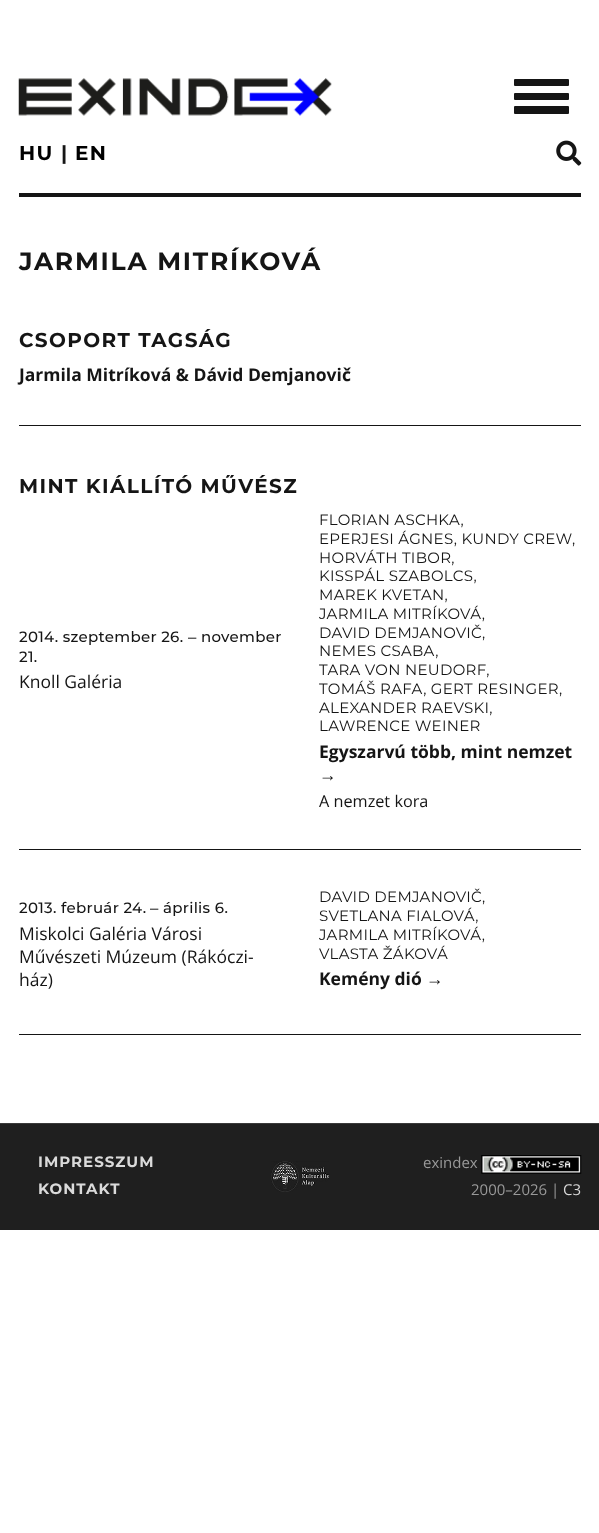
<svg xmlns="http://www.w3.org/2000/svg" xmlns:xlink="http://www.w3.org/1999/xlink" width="599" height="1533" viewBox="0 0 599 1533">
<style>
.cls-1{font:bold 20px Montserrat;letter-spacing:1.4px;fill:#000000}
.cls-2{font:bold 20px Montserrat;letter-spacing:1.4px;fill:#151515}
.cls-3{font:bold 25px Montserrat;letter-spacing:1.75px;fill:#151515}
.cls-4{font:bold 17.5px Open Sans;fill:#151515}
.cls-5{font:500 15px Montserrat;letter-spacing:0.3px;fill:#151515}
.cls-6{font:15px Liberation Sans;letter-spacing:0.3px;fill:#151515}
.cls-7{font:17.5px Open Sans;fill:#151515}
.cls-8{font:15px Montserrat;letter-spacing:0.3px;fill:#151515}
.cls-9{font:bold 17.5px Liberation Sans;fill:#151515}
.cls-10{font:16.25px Open Sans;fill:#151515}
.cls-11{font:bold 15px Montserrat;letter-spacing:1px;fill:#dadada}
.cls-12{font:15px Open Sans;fill:#999999}
.cls-13{font:15px Open Sans;fill:#dadada}
</style>
<rect width="100%" height="100%" fill="#ffffff"/>
<image xlink:href="image0.png" x="18" y="78" width="314" height="38"/>
<rect fill="#151515" x="514" y="79" width="55" height="7" rx="1"/>
<rect fill="#151515" x="514" y="93" width="55" height="7" rx="1"/>
<rect fill="#151515" x="514" y="106" width="55" height="8" rx="1"/>
<image xlink:href="image1.png" x="556" y="140" width="26" height="26"/>
<rect fill="#151515" x="19" y="193" width="562" height="4"/>
<rect fill="#151515" x="19" y="425" width="562" height="1"/>
<rect fill="#151515" x="19" y="849" width="562" height="1"/>
<rect fill="#151515" x="19" y="1034" width="562" height="1"/>
<rect fill="#1f1f1f" x="0" y="1124" width="599" height="106"/>
<rect fill="#3a3a3a" x="0" y="1123" width="599" height="1"/>
<image xlink:href="image2.png" x="271" y="1161" width="58" height="31"/>
<image xlink:href="image3.png" x="481" y="1155" width="101" height="19"/>
<text class="cls-1" x="19" y="160">HU</text>
<text class="cls-2" x="61" y="160">|</text>
<text class="cls-1" x="75" y="160">EN</text>
<text class="cls-3" x="19" y="270">JARMILA MITRÍKOVÁ</text>
<text class="cls-2" x="19" y="347">CSOPORT TAGSÁG</text>
<text class="cls-4" x="19" y="381">Jarmila Mitríková &amp; Dávid Demjanovič</text>
<text class="cls-2" x="19" y="493">MINT KIÁLLÍTÓ MŰVÉSZ</text>
<text class="cls-5" x="19" y="642">2014. szeptember 26.</text>
<text class="cls-6" x="188" y="642">‒</text>
<text class="cls-5" x="201" y="642">november</text>
<text class="cls-5" x="19" y="662">21.</text>
<text class="cls-7" x="19" y="688">Knoll Galéria</text>
<text class="cls-8"><tspan x="319" y="525">FLORIAN ASCHKA,</tspan><tspan x="319" y="544">EPERJESI ÁGNES, KUNDY CREW,</tspan><tspan x="319" y="563">HORVÁTH TIBOR,</tspan><tspan x="319" y="581">KISSPÁL SZABOLCS,</tspan><tspan x="319" y="600">MAREK KVETAN,</tspan><tspan x="319" y="619">JARMILA MITRÍKOVÁ,</tspan><tspan x="319" y="638">DAVID DEMJANOVIČ,</tspan><tspan x="319" y="656">NEMES CSABA,</tspan><tspan x="319" y="675">TARA VON NEUDORF,</tspan><tspan x="319" y="694">TOMÁŠ RAFA, GERT RESINGER,</tspan><tspan x="319" y="713">ALEXANDER RAEVSKI,</tspan><tspan x="319" y="731">LAWRENCE WEINER</tspan></text>
<text class="cls-4" x="319" y="758">Egyszarvú több, mint nemzet</text>
<text class="cls-9" x="319" y="781">→</text>
<text class="cls-10" x="319" y="807">A nemzet kora</text>
<text class="cls-5" x="19" y="913">2013. február 24.</text>
<text class="cls-6" x="150" y="913">‒</text>
<text class="cls-5" x="163" y="913">április 6.</text>
<text class="cls-7"><tspan x="19" y="940">Miskolci Galéria Városi</tspan><tspan x="19" y="963">Művészeti Múzeum (Rákóczi-</tspan><tspan x="19" y="986">ház)</tspan></text>
<text class="cls-8"><tspan x="319" y="902">DAVID DEMJANOVIČ,</tspan><tspan x="319" y="921">SVETLANA FIALOVÁ,</tspan><tspan x="319" y="940">JARMILA MITRÍKOVÁ,</tspan><tspan x="319" y="959">VLASTA ŽÁKOVÁ</tspan></text>
<text class="cls-4" x="319" y="985">Kemény dió</text>
<text class="cls-9" x="426" y="985">→</text>
<text class="cls-11"><tspan x="38" y="1167">IMPRESSZUM</tspan><tspan x="38" y="1194">KONTAKT</tspan></text>
<text class="cls-12" x="423" y="1168">exindex</text>
<text class="cls-12" x="471" y="1195">2000–2026 |</text>
<text class="cls-13" x="563" y="1195">C3</text>
</svg>
